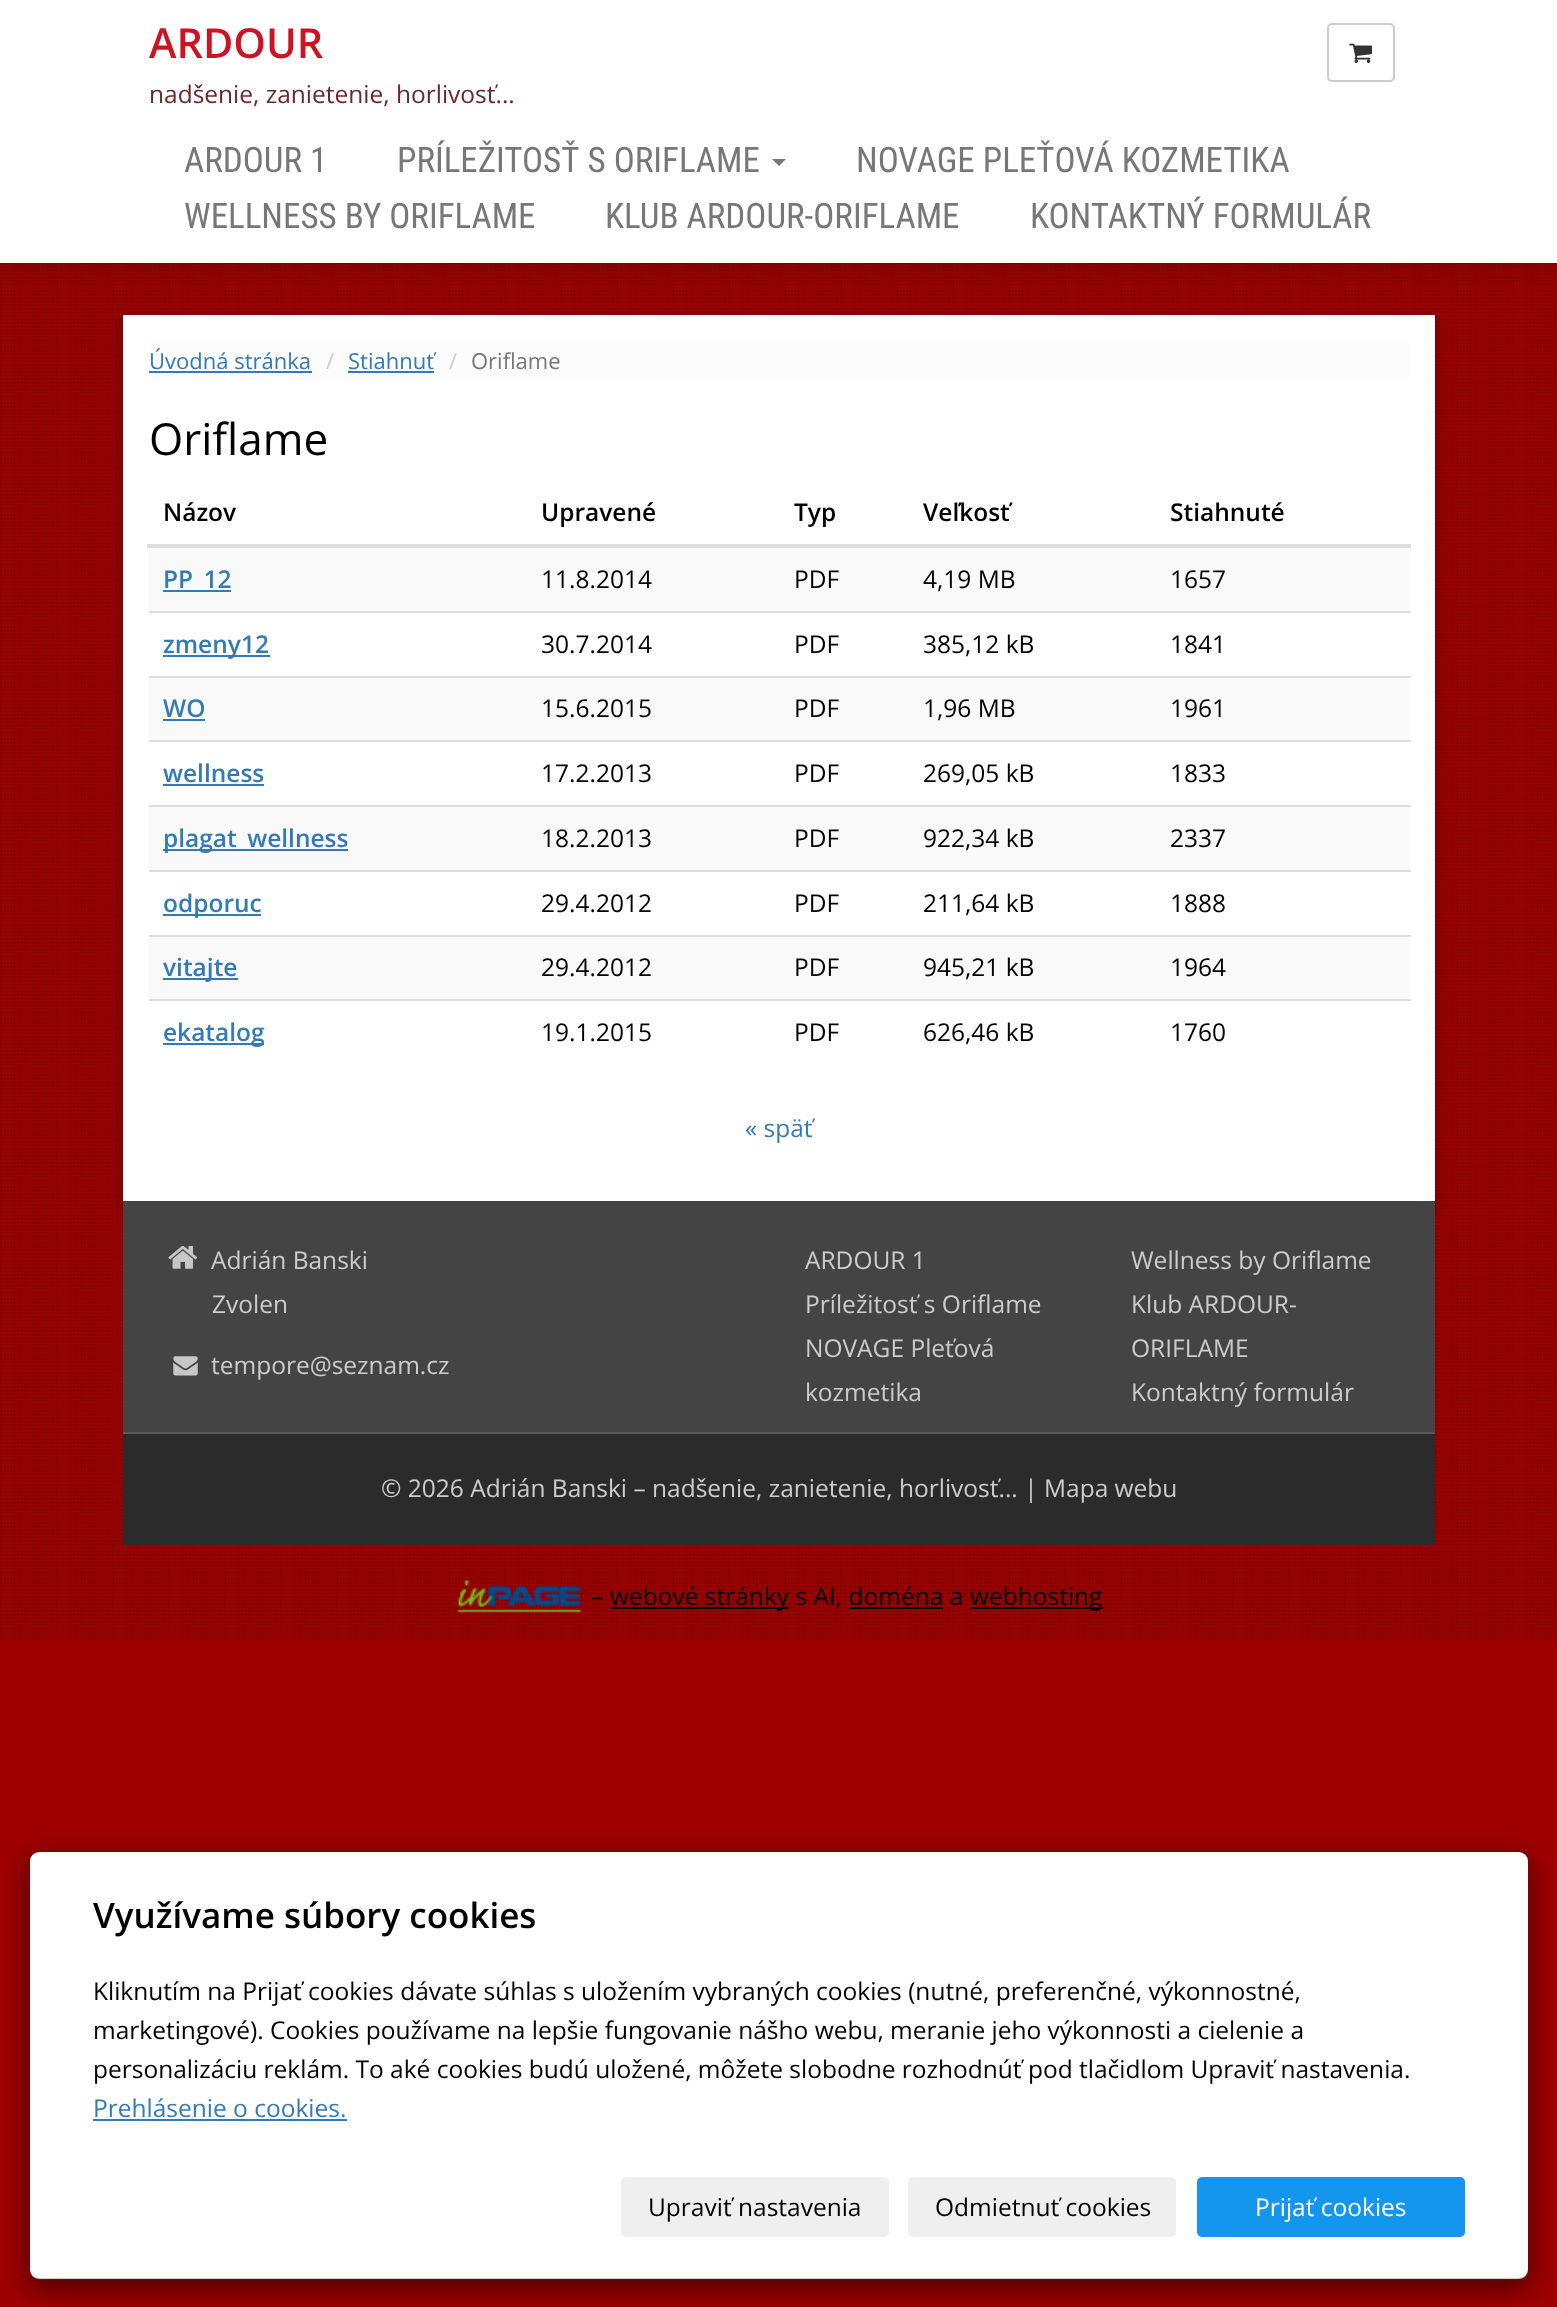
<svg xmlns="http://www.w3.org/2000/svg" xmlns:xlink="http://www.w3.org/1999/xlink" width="1557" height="2307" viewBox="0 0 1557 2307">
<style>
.cls-1{font:600 41.5px Open Sans;fill:#cd1424}
.cls-2{font:24.5px Open Sans;fill:#6a2929}
.cls-3{font:35px Roboto Condensed;fill:#777777}
.cls-4{font:22px Open Sans;fill:#337ab7}
.cls-5{font:22px Open Sans;fill:#cccccc}
.cls-6{font:22px Open Sans;fill:#777777}
.cls-7{font:44px Open Sans;fill:#000000}
.cls-8{font:600 24.5px Open Sans;fill:#000000}
.cls-9{font:600 24.5px Open Sans;fill:#337ab7}
.cls-10{font:24.5px Open Sans;fill:#000000}
.cls-11{font:24.5px Open Sans;fill:#337ab7}
.cls-12{font:24.5px Open Sans;fill:#cccccc}
.cls-13{font:600 35px Open Sans;fill:#000000}
.cls-14{font:24.5px Open Sans;fill:#ffffff}
</style>
<defs>
<clipPath id="clip1"><path d="M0 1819H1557V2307H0ZM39 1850H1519C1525 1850 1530 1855 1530 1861V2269C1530 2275 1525 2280 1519 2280H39C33 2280 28 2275 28 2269V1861C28 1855 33 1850 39 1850Z" clip-rule="evenodd"/></clipPath>
</defs>
<rect width="100%" height="100%" fill="#9e0000"/>
<image xlink:href="image0.png" x="0" y="263" width="1557" height="1377"/>
<rect fill="#000000" fill-opacity="0.2" filter="blur(9px)" x="0" y="0" width="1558" height="263"/>
<rect fill="#ffffff" x="0" y="0" width="1557" height="263"/>
<rect fill="none" stroke="#cccccc" stroke-width="2" x="1328" y="24" width="66" height="57" rx="4"/>
<image xlink:href="image1.png" x="1349" y="43" width="23" height="20"/>
<path fill="#777777" d="M772 159H786L779 166Z"/>
<rect fill="#000000" fill-opacity="0.1" filter="blur(4.5px)" x="117" y="315" width="1323" height="896"/>
<rect fill="#ffffff" x="123" y="315" width="1312" height="886"/>
<rect fill="#fcfcfc" x="149" y="341" width="1260" height="39"/>
<rect fill="#337ab7" x="149" y="371" width="163" height="2"/>
<rect fill="#337ab7" x="348" y="371" width="86" height="2"/>
<rect fill="#dddddd" x="147" y="544" width="1264" height="4"/>
<rect fill="#f9f9f9" x="149" y="548" width="1260" height="63"/>
<rect fill="#337ab7" x="163" y="590" width="68" height="2"/>
<rect fill="#337ab7" x="163" y="655" width="107" height="2"/>
<rect fill="#dddddd" x="149" y="611" width="1262" height="2"/>
<rect fill="#f9f9f9" x="149" y="678" width="1260" height="62"/>
<rect fill="#337ab7" x="163" y="719" width="42" height="2"/>
<rect fill="#dddddd" x="149" y="676" width="1262" height="2"/>
<rect fill="#337ab7" x="163" y="784" width="101" height="2"/>
<rect fill="#dddddd" x="149" y="740" width="1262" height="2"/>
<rect fill="#f9f9f9" x="149" y="807" width="1260" height="63"/>
<rect fill="#337ab7" x="163" y="849" width="185" height="2"/>
<rect fill="#dddddd" x="149" y="805" width="1262" height="2"/>
<rect fill="#337ab7" x="163" y="914" width="98" height="2"/>
<rect fill="#dddddd" x="149" y="870" width="1262" height="2"/>
<rect fill="#f9f9f9" x="149" y="937" width="1260" height="62"/>
<rect fill="#337ab7" x="163" y="978" width="75" height="2"/>
<rect fill="#dddddd" x="149" y="935" width="1262" height="2"/>
<rect fill="#337ab7" x="163" y="1043" width="101" height="2"/>
<rect fill="#dddddd" x="149" y="999" width="1262" height="2"/>
<rect fill="#444444" x="123" y="1201" width="1312" height="231"/>
<image xlink:href="image2.png" x="168" y="1246" width="30" height="23"/>
<image xlink:href="image3.png" x="173" y="1356" width="25" height="20"/>
<rect fill="#2b2b2b" x="123" y="1434" width="1312" height="111"/>
<rect fill="#595959" x="123" y="1432" width="1312" height="2"/>
<image xlink:href="image4.png" x="456" y="1579" width="126" height="34"/>
<rect fill="#000000" x="611" y="1607" width="178" height="2"/>
<rect fill="#000000" x="970" y="1607" width="133" height="2"/>
<rect fill="#000000" x="849" y="1607" width="94" height="2"/>
<g clip-path="url(#clip1)">
<rect fill="#000000" fill-opacity="0.5" filter="blur(13px)" x="28" y="1859" width="1502" height="430" rx="11"/>
</g>
<rect fill="#ffffff" x="30" y="1852" width="1498" height="427" rx="9"/>
<rect fill="none" stroke="#000000" stroke-opacity="0.2" stroke-width="2" x="29" y="1851" width="1500" height="428" rx="10"/>
<rect fill="#337ab7" x="93" y="2119" width="254" height="2"/>
<rect fill="#efefef" x="621" y="2177" width="268" height="60" rx="5"/>
<rect fill="#efefef" x="908" y="2177" width="268" height="60" rx="5"/>
<rect fill="#1496ee" stroke="#1496ee" stroke-width="2" x="1198" y="2178" width="266" height="58" rx="4"/>
<text class="cls-1" x="149" y="58">ARDOUR</text>
<text class="cls-2" x="149" y="103">nadšenie, zanietenie, horlivosť...</text>
<text class="cls-3" x="184" y="172">ARDOUR 1</text>
<text class="cls-3" x="397" y="172">PRÍLEŽITOSŤ S ORIFLAME</text>
<text class="cls-3" x="856" y="172">NOVAGE PLEŤOVÁ KOZMETIKA</text>
<text class="cls-3" x="184" y="228">WELLNESS BY ORIFLAME</text>
<text class="cls-3" x="605" y="228">KLUB ARDOUR-ORIFLAME</text>
<text class="cls-3" x="1030" y="228">KONTAKTNÝ FORMULÁR</text>
<text class="cls-4" x="149" y="369">Úvodná stránka</text>
<text class="cls-5" x="326" y="369">/</text>
<text class="cls-4" x="348" y="369">Stiahnuť</text>
<text class="cls-5" x="449" y="369">/</text>
<text class="cls-6" x="471" y="369">Oriflame</text>
<text class="cls-7" x="149" y="455">Oriflame</text>
<text class="cls-8" x="163" y="521">Názov</text>
<text class="cls-8" x="541" y="521">Upravené</text>
<text class="cls-8" x="794" y="521">Typ</text>
<text class="cls-8" x="923" y="521">Veľkosť</text>
<text class="cls-8" x="1170" y="521">Stiahnuté</text>
<text class="cls-9" x="163" y="588">PP_12</text>
<text class="cls-10" x="541" y="588">11.8.2014</text>
<text class="cls-10" x="794" y="588">PDF</text>
<text class="cls-10" x="923" y="588">4,19 MB</text>
<text class="cls-10" x="1170" y="588">1657</text>
<text class="cls-9" x="163" y="653">zmeny12</text>
<text class="cls-10" x="541" y="653">30.7.2014</text>
<text class="cls-10" x="794" y="653">PDF</text>
<text class="cls-10" x="923" y="653">385,12 kB</text>
<text class="cls-10" x="1170" y="653">1841</text>
<text class="cls-9" x="163" y="717">WO</text>
<text class="cls-10" x="541" y="717">15.6.2015</text>
<text class="cls-10" x="794" y="717">PDF</text>
<text class="cls-10" x="923" y="717">1,96 MB</text>
<text class="cls-10" x="1170" y="717">1961</text>
<text class="cls-9" x="163" y="782">wellness</text>
<text class="cls-10" x="541" y="782">17.2.2013</text>
<text class="cls-10" x="794" y="782">PDF</text>
<text class="cls-10" x="923" y="782">269,05 kB</text>
<text class="cls-10" x="1170" y="782">1833</text>
<text class="cls-9" x="163" y="847">plagat_wellness</text>
<text class="cls-10" x="541" y="847">18.2.2013</text>
<text class="cls-10" x="794" y="847">PDF</text>
<text class="cls-10" x="923" y="847">922,34 kB</text>
<text class="cls-10" x="1170" y="847">2337</text>
<text class="cls-9" x="163" y="912">odporuc</text>
<text class="cls-10" x="541" y="912">29.4.2012</text>
<text class="cls-10" x="794" y="912">PDF</text>
<text class="cls-10" x="923" y="912">211,64 kB</text>
<text class="cls-10" x="1170" y="912">1888</text>
<text class="cls-9" x="163" y="976">vitajte</text>
<text class="cls-10" x="541" y="976">29.4.2012</text>
<text class="cls-10" x="794" y="976">PDF</text>
<text class="cls-10" x="923" y="976">945,21 kB</text>
<text class="cls-10" x="1170" y="976">1964</text>
<text class="cls-9" x="163" y="1041">ekatalog</text>
<text class="cls-10" x="541" y="1041">19.1.2015</text>
<text class="cls-10" x="794" y="1041">PDF</text>
<text class="cls-10" x="923" y="1041">626,46 kB</text>
<text class="cls-10" x="1170" y="1041">1760</text>
<text class="cls-11" x="745" y="1137">« späť</text>
<text class="cls-12" x="211" y="1269">Adrián Banski</text>
<text class="cls-12" x="212" y="1313">Zvolen</text>
<text class="cls-12" x="211" y="1374">tempore@seznam.cz</text>
<text class="cls-12" x="805" y="1269">ARDOUR 1</text>
<text class="cls-12" x="1131" y="1269">Wellness by Oriflame</text>
<text class="cls-12" x="805" y="1313">Príležitosť s Oriflame</text>
<text class="cls-12"><tspan x="1131" y="1313">Klub ARDOUR-</tspan><tspan x="1131" y="1357">ORIFLAME</tspan></text>
<text class="cls-12"><tspan x="805" y="1357">NOVAGE Pleťová</tspan><tspan x="805" y="1401">kozmetika</tspan></text>
<text class="cls-12" x="1131" y="1401">Kontaktný formulár</text>
<text class="cls-12" x="381" y="1497">© 2026 Adrián Banski – nadšenie, zanietenie, horlivosť... | Mapa webu</text>
<text class="cls-10" x="591" y="1605">–</text>
<text class="cls-10" x="610" y="1605">webové stránky s AI, doména a</text>
<text class="cls-10" x="970" y="1605">webhosting</text>
<text class="cls-13" x="93" y="1928">Využívame súbory cookies</text>
<text class="cls-10"><tspan x="93" y="2000">Kliknutím na Prijať cookies dávate súhlas s uložením vybraných cookies (nutné, preferenčné, výkonnostné,</tspan><tspan x="93" y="2039">marketingové). Cookies používame na lepšie fungovanie nášho webu, meranie jeho výkonnosti a cielenie a</tspan><tspan x="93" y="2078">personalizáciu reklám. To aké cookies budú uložené, môžete slobodne rozhodnúť pod tlačidlom Upraviť nastavenia.</tspan></text>
<text class="cls-11" x="93" y="2117">Prehlásenie o cookies.</text>
<text class="cls-10" x="648" y="2216">Upraviť nastavenia</text>
<text class="cls-10" x="935" y="2216">Odmietnuť cookies</text>
<text class="cls-14" x="1255" y="2216">Prijať cookies</text>
</svg>
